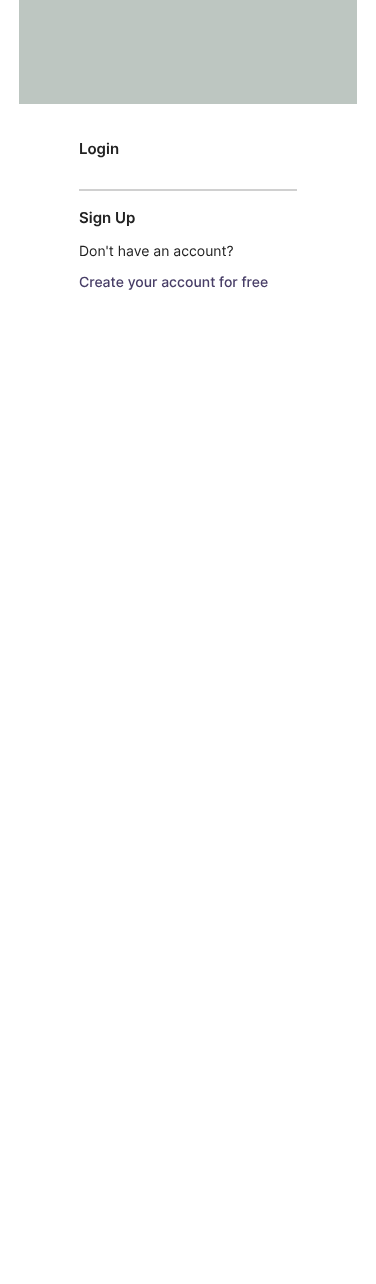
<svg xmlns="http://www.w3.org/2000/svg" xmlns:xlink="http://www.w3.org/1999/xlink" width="376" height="1284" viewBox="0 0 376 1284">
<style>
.cls-1{font:600 15px Inter;fill:#222222}
.cls-2{font:14px Inter;fill:#222222}
.cls-3{font:500 14px Inter;fill:#483e67}
</style>
<rect width="100%" height="100%" fill="#ffffff"/>
<rect fill="#bdc6c1" x="19" y="0" width="338" height="104"/>
<rect fill="#d0d0d0" x="79" y="189" width="218" height="2"/>
<text class="cls-1" x="79" y="154">Login</text>
<text class="cls-1" x="79" y="223">Sign Up</text>
<text class="cls-2" x="79" y="256">Don't have an account?</text>
<text class="cls-3" x="79" y="287">Create your account for free</text>
</svg>
